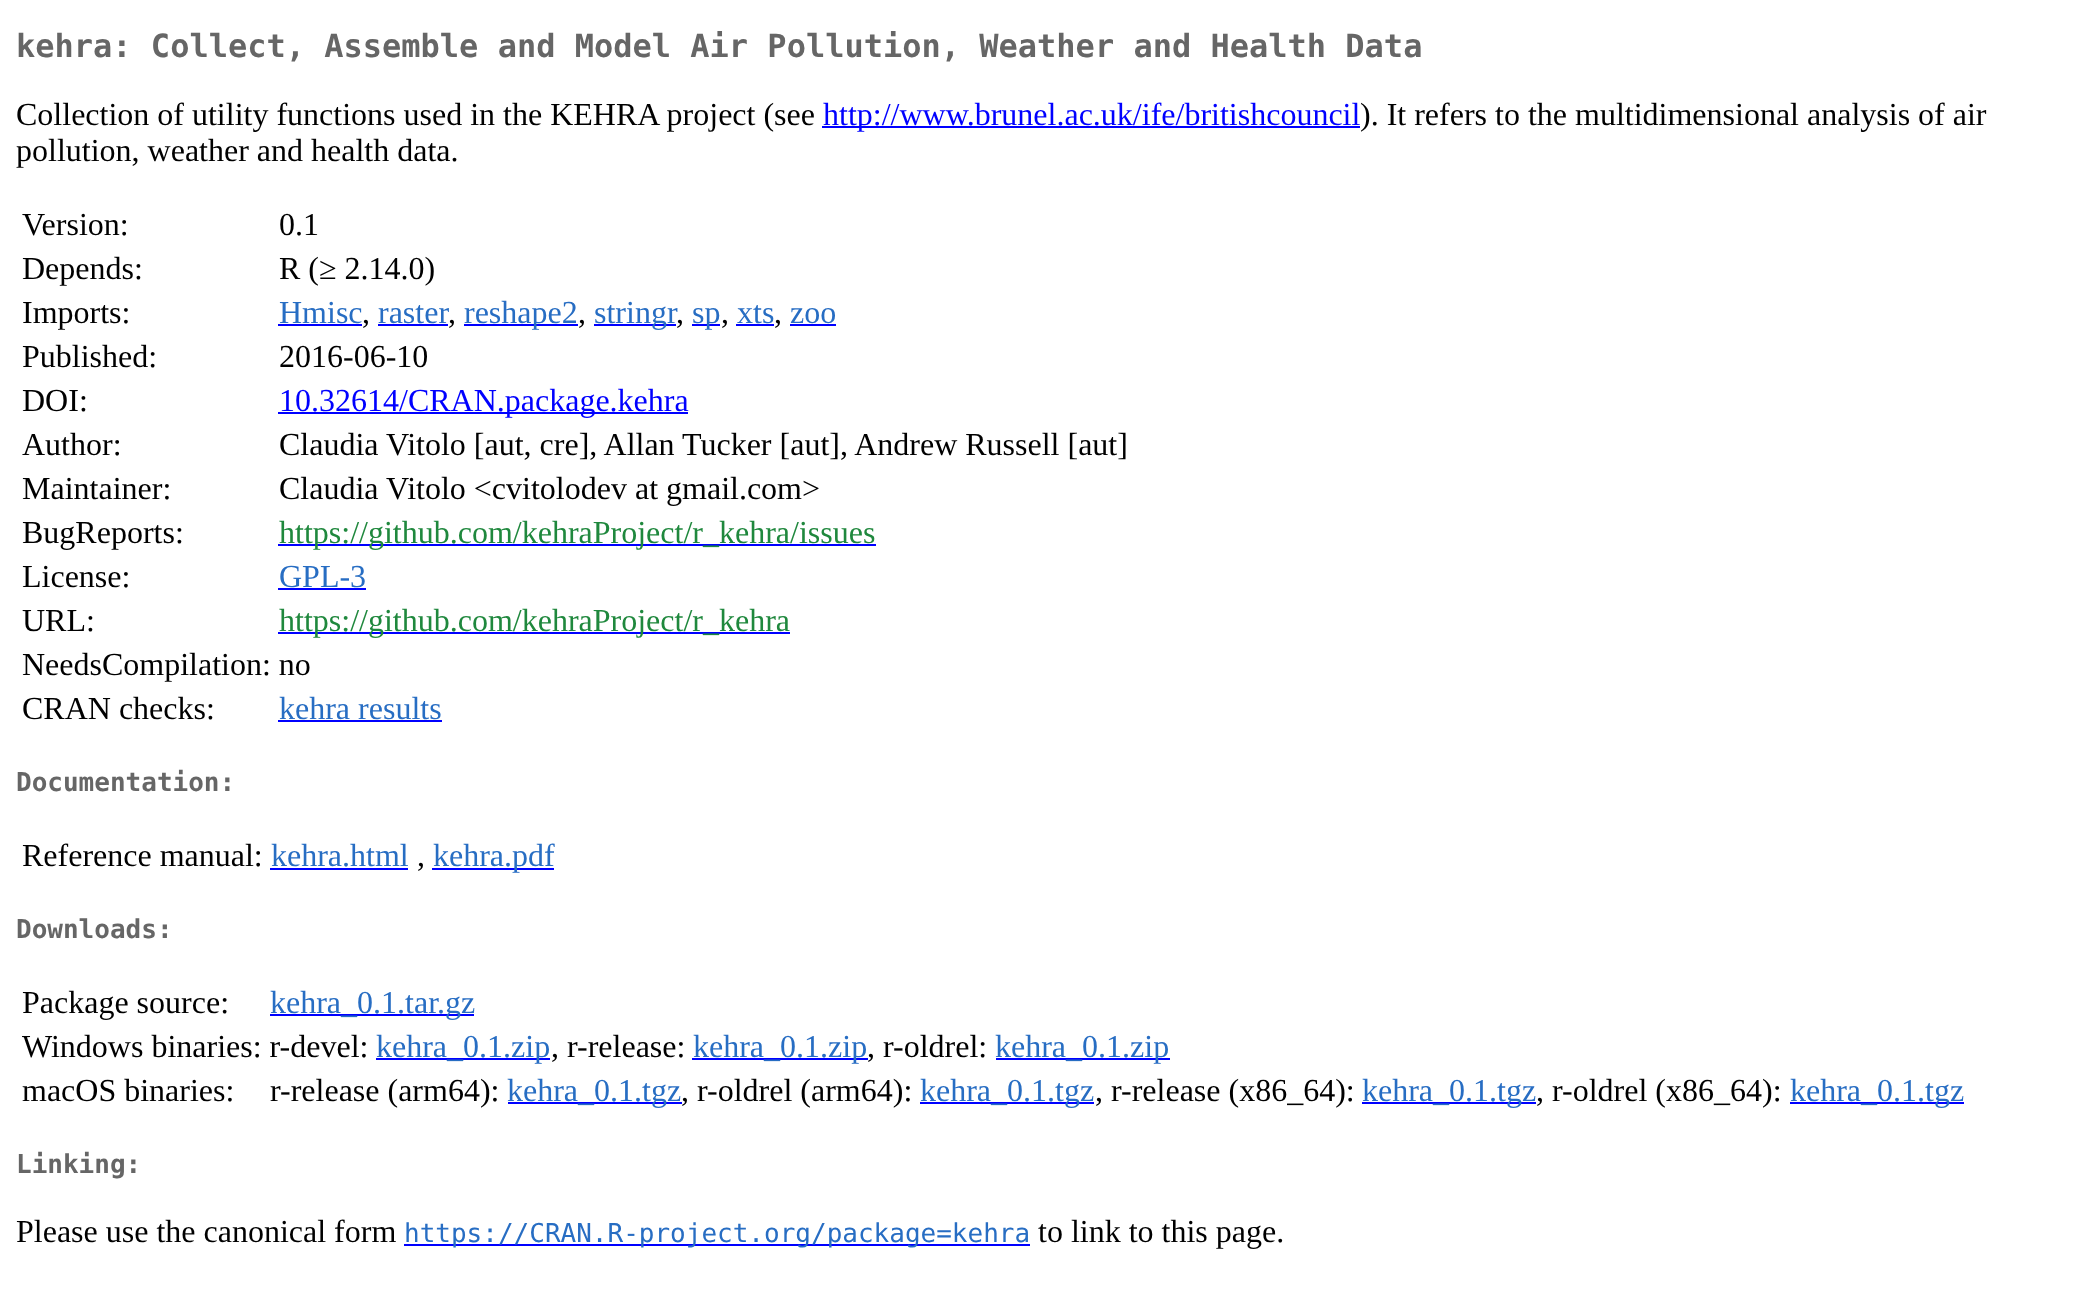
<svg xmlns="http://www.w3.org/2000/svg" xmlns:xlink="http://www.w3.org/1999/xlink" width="2076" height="1312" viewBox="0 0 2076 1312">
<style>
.cls-1{font:bold 32px DejaVu Sans Mono;fill:#666666}
.cls-2{font:32px Liberation Serif;fill:#000000}
.cls-3{font:32px Liberation Serif;fill:#0000ff}
.cls-4{font:32px Liberation Serif;fill:#276dc3}
.cls-5{font:32px Liberation Serif;fill:#1f883d}
.cls-6{font:bold 26px DejaVu Sans Mono;fill:#666666}
.cls-7{font:26px DejaVu Sans Mono;fill:#276dc3}
</style>
<rect width="100%" height="100%" fill="#ffffff"/>
<rect fill="#0000ff" x="822" y="126" width="538" height="2"/>
<rect fill="#0000ff" x="278" y="324" width="84" height="2"/>
<rect fill="#0000ff" x="378" y="324" width="70" height="2"/>
<rect fill="#0000ff" x="464" y="324" width="114" height="2"/>
<rect fill="#0000ff" x="594" y="324" width="82" height="2"/>
<rect fill="#0000ff" x="692" y="324" width="28" height="2"/>
<rect fill="#0000ff" x="736" y="324" width="38" height="2"/>
<rect fill="#0000ff" x="790" y="324" width="46" height="2"/>
<rect fill="#0000ff" x="278" y="412" width="410" height="2"/>
<rect fill="#0000ff" x="278" y="544" width="598" height="2"/>
<rect fill="#0000ff" x="278" y="588" width="88" height="2"/>
<rect fill="#0000ff" x="278" y="632" width="512" height="2"/>
<rect fill="#0000ff" x="278" y="720" width="164" height="2"/>
<rect fill="#0000ff" x="270" y="868" width="138" height="2"/>
<rect fill="#0000ff" x="432" y="868" width="122" height="2"/>
<rect fill="#0000ff" x="270" y="1014" width="204" height="2"/>
<rect fill="#0000ff" x="376" y="1058" width="174" height="2"/>
<rect fill="#0000ff" x="692" y="1058" width="176" height="2"/>
<rect fill="#0000ff" x="996" y="1058" width="174" height="2"/>
<rect fill="#0000ff" x="508" y="1102" width="174" height="2"/>
<rect fill="#0000ff" x="920" y="1102" width="174" height="2"/>
<rect fill="#0000ff" x="1362" y="1102" width="174" height="2"/>
<rect fill="#0000ff" x="1790" y="1102" width="174" height="2"/>
<rect fill="#0000ff" x="404" y="1244" width="626" height="2"/>
<text class="cls-1" x="16" y="57">kehra: Collect, Assemble and Model Air Pollution, Weather and Health Data</text>
<text class="cls-2" x="16" y="125">Collection of utility functions used in the KEHRA project (see</text>
<text class="cls-3" x="823" y="125">http://www.brunel.ac.uk/ife/britishcouncil</text>
<text class="cls-2" x="1360" y="125">). It refers to the multidimensional analysis of air</text>
<text class="cls-2" x="16" y="161">pollution, weather and health data.</text>
<text class="cls-2" x="22" y="235">Version:</text>
<text class="cls-2" x="279" y="235">0.1</text>
<text class="cls-2" x="22" y="279">Depends:</text>
<text class="cls-2" x="279" y="279">R (≥ 2.14.0)</text>
<text class="cls-2" x="22" y="323">Imports:</text>
<text class="cls-4" x="279" y="323">Hmisc</text>
<text class="cls-2" x="362" y="323">,</text>
<text class="cls-4" x="378" y="323">raster</text>
<text class="cls-2" x="448" y="323">,</text>
<text class="cls-4" x="464" y="323">reshape2</text>
<text class="cls-2" x="578" y="323">,</text>
<text class="cls-4" x="594" y="323">stringr</text>
<text class="cls-2" x="676" y="323">,</text>
<text class="cls-4" x="692" y="323">sp</text>
<text class="cls-2" x="721" y="323">,</text>
<text class="cls-4" x="737" y="323">xts</text>
<text class="cls-2" x="774" y="323">,</text>
<text class="cls-4" x="790" y="323">zoo</text>
<text class="cls-2" x="22" y="367">Published:</text>
<text class="cls-2" x="279" y="367">2016-06-10</text>
<text class="cls-2" x="22" y="411">DOI:</text>
<text class="cls-3" x="279" y="411">10.32614/CRAN.package.kehra</text>
<text class="cls-2" x="22" y="455">Author:</text>
<text class="cls-2" x="279" y="455">Claudia Vitolo [aut, cre], Allan Tucker [aut], Andrew Russell [aut]</text>
<text class="cls-2" x="22" y="499">Maintainer:</text>
<text class="cls-2" x="279" y="499">Claudia Vitolo &lt;cvitolodev at gmail.com&gt;</text>
<text class="cls-2" x="22" y="543">BugReports:</text>
<text class="cls-5" x="279" y="543">https://github.com/kehraProject/r_kehra/issues</text>
<text class="cls-2" x="22" y="587">License:</text>
<text class="cls-4" x="279" y="587">GPL-3</text>
<text class="cls-2" x="22" y="631">URL:</text>
<text class="cls-5" x="279" y="631">https://github.com/kehraProject/r_kehra</text>
<text class="cls-2"><tspan x="22" y="675">NeedsCompilation: no</tspan><tspan x="22" y="719">CRAN checks:</tspan></text>
<text class="cls-4" x="279" y="719">kehra results</text>
<text class="cls-6" x="16" y="791">Documentation:</text>
<text class="cls-2" x="22" y="866">Reference manual:</text>
<text class="cls-4" x="271" y="866">kehra.html</text>
<text class="cls-2" x="417" y="866">,</text>
<text class="cls-4" x="433" y="866">kehra.pdf</text>
<text class="cls-6" x="16" y="938">Downloads:</text>
<text class="cls-2" x="22" y="1013">Package source:</text>
<text class="cls-4" x="270" y="1013">kehra_0.1.tar.gz</text>
<text class="cls-2" x="22" y="1057">Windows binaries: r-devel:</text>
<text class="cls-4" x="376" y="1057">kehra_0.1.zip</text>
<text class="cls-2" x="551" y="1057">, r-release:</text>
<text class="cls-4" x="693" y="1057">kehra_0.1.zip</text>
<text class="cls-2" x="867" y="1057">, r-oldrel:</text>
<text class="cls-4" x="995" y="1057">kehra_0.1.zip</text>
<text class="cls-2" x="22" y="1101">macOS binaries:</text>
<text class="cls-2" x="270" y="1101">r-release (arm64):</text>
<text class="cls-4" x="507" y="1101">kehra_0.1.tgz</text>
<text class="cls-2" x="681" y="1101">, r-oldrel (arm64):</text>
<text class="cls-4" x="920" y="1101">kehra_0.1.tgz</text>
<text class="cls-2" x="1095" y="1101">, r-release (x86_64):</text>
<text class="cls-4" x="1362" y="1101">kehra_0.1.tgz</text>
<text class="cls-2" x="1536" y="1101">, r-oldrel (x86_64):</text>
<text class="cls-4" x="1790" y="1101">kehra_0.1.tgz</text>
<text class="cls-6" x="16" y="1173">Linking:</text>
<text class="cls-2" x="16" y="1242">Please use the canonical form</text>
<text class="cls-7" x="404" y="1242">https://CRAN.R-project.org/package=kehra</text>
<text class="cls-2" x="1038" y="1242">to link to this page.</text>
</svg>
